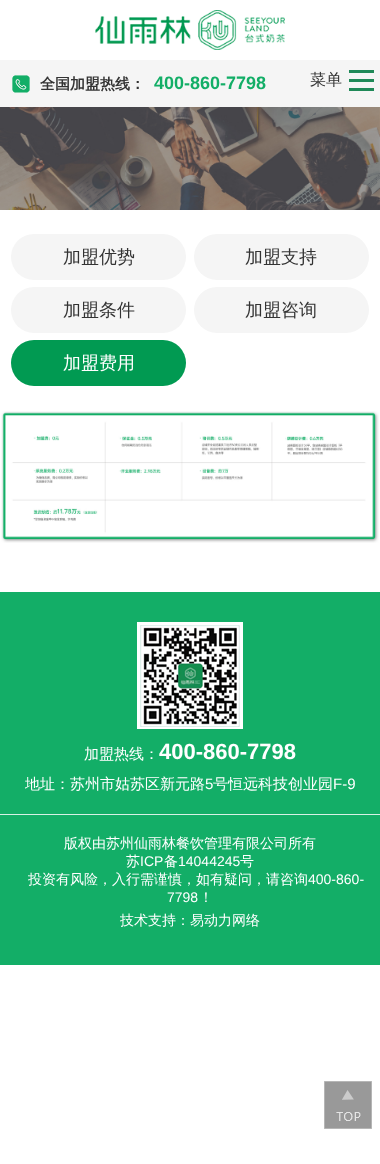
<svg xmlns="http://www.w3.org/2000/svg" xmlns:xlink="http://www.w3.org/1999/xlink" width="380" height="1164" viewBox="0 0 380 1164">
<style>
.cls-1{font:bold 15px WenQuanYi Zen Hei;fill:#333333}
.cls-2{font:bold 18px Liberation Sans;fill:#13ae67}
.cls-3{font:500 16px WenQuanYi Zen Hei;fill:#333333}
.cls-4{font:500 18px WenQuanYi Zen Hei;fill:#333333}
.cls-5{font:500 18px WenQuanYi Zen Hei;fill:#ffffff}
.cls-6{font:500 15px WenQuanYi Zen Hei;fill:#ffffff}
.cls-7{font:bold 22px Liberation Sans;fill:#ffffff}
.cls-8{font:15px Liberation Sans;fill:#ffffff}
.cls-9{font:500 14px WenQuanYi Zen Hei;fill:#ffffff}
.cls-10{font:14px Liberation Sans;fill:#ffffff}
</style>
<rect width="100%" height="100%" fill="#ffffff"/>
<image xlink:href="image0.png" x="95" y="10" width="190" height="40"/>
<rect fill="#f5f5f5" x="0" y="60" width="380" height="47"/>
<image xlink:href="image1.png" x="12" y="75" width="18" height="18"/>
<rect fill="#1f8958" x="349" y="70" width="25" height="3"/>
<rect fill="#1f8958" x="349" y="79" width="25" height="3"/>
<rect fill="#1f8958" x="349" y="88" width="25" height="3"/>
<image xlink:href="image2.png" x="0" y="107" width="380" height="103"/>
<rect fill="#f5f5f5" x="11" y="234" width="175" height="46" rx="23"/>
<rect fill="#f5f5f5" x="194" y="234" width="175" height="46" rx="23"/>
<rect fill="#f5f5f5" x="11" y="287" width="175" height="46" rx="23"/>
<rect fill="#f5f5f5" x="194" y="287" width="175" height="46" rx="23"/>
<rect fill="#019a52" x="11" y="340" width="175" height="46" rx="23"/>
<image xlink:href="image3.png" x="1" y="411" width="378" height="132"/>
<rect fill="#13ae67" x="0" y="592" width="380" height="373"/>
<rect fill="#d7f1e5" x="0" y="814" width="380" height="1"/>
<image xlink:href="image4.png" x="137" y="622" width="106" height="107"/>
<rect fill="#999999" x="324" y="1081" width="48" height="48"/>
<image xlink:href="image5.png" x="324" y="1081" width="48" height="48"/>
<text class="cls-1" x="40" y="89">全国加盟热线：</text>
<text class="cls-2" x="154" y="89">400-860-7798</text>
<text class="cls-3" x="310" y="85">菜单</text>
<text class="cls-4" x="63" y="263">加盟优势</text>
<text class="cls-4" x="245" y="263">加盟支持</text>
<text class="cls-4" x="63" y="316">加盟条件</text>
<text class="cls-4" x="245" y="316">加盟咨询</text>
<text class="cls-5" x="63" y="369">加盟费用</text>
<text class="cls-6" x="84" y="759">加盟热线：</text>
<text class="cls-7" x="159" y="759">400-860-7798</text>
<text class="cls-6" x="25" y="789">地址：苏州市姑苏区新元路</text>
<text class="cls-8" x="205" y="789">5</text>
<text class="cls-6" x="213" y="789">号恒远科技创业园</text>
<text class="cls-8" x="333" y="789">F-9</text>
<text class="cls-9" x="64" y="848">版权由苏州仙雨林餐饮管理有限公司所有</text>
<text class="cls-9" x="126" y="866">苏</text>
<text class="cls-10" x="140" y="866">ICP</text>
<text class="cls-9" x="164" y="866">备</text>
<text class="cls-10" x="178" y="866">14044245</text>
<text class="cls-9" x="240" y="866">号</text>
<text class="cls-9" x="28" y="884">投资有风险，入行需谨慎，如有疑问，请咨询</text>
<text class="cls-10" x="308" y="884">400-860-</text>
<text class="cls-10" x="167" y="902">7798</text>
<text class="cls-9" x="199" y="902">！</text>
<text class="cls-9" x="120" y="925">技术支持：易动力网络</text>
</svg>
